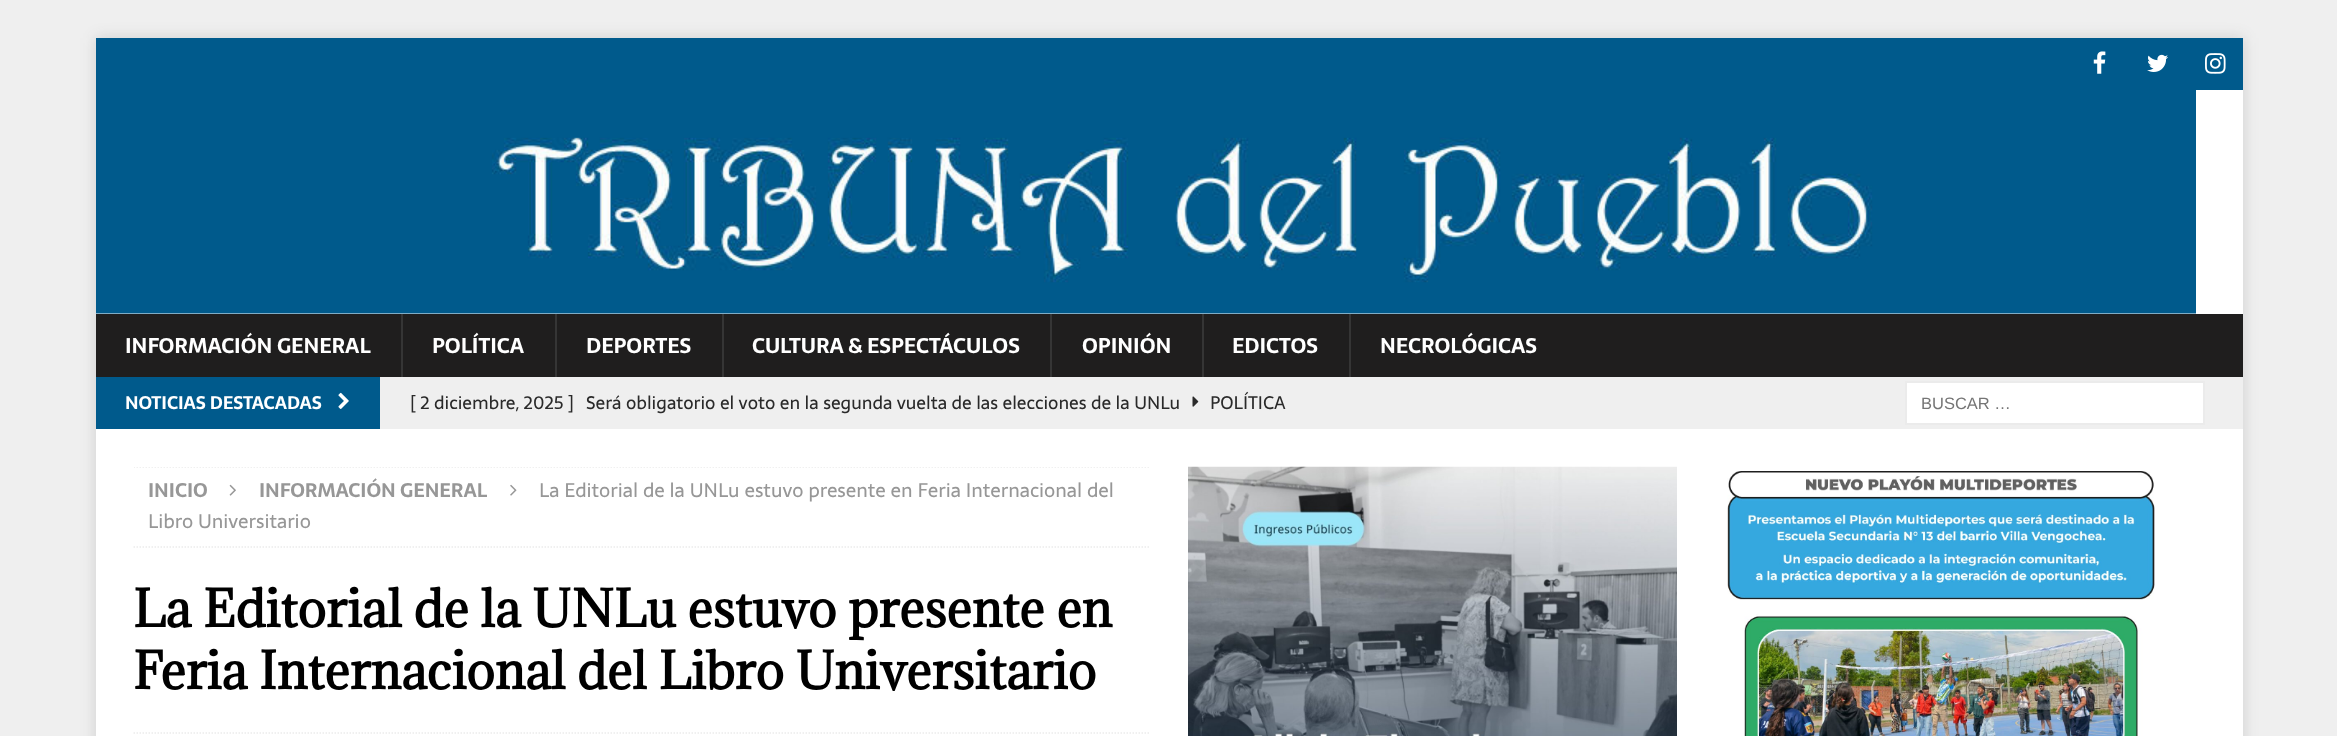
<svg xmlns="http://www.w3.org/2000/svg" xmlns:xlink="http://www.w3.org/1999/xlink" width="2337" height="736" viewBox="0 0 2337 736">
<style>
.cls-1{font:bold 21px Sarala;fill:#ffffff}
.cls-2{font:bold 18px Sarala;fill:#ffffff}
.cls-3{font:18px Sarala;fill:#2a2a2a}
.cls-4{font:16.5px Liberation Sans;fill:#757575}
.cls-5{font:bold 19.5px Sarala;fill:#979797}
.cls-6{font:19.5px Sarala;fill:#979797}
.cls-7{font:bold 48px Adamina;fill:#000000}
</style>
<defs>
<clipPath id="clip1"><rect x="134" y="467" width="1017" height="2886"/></clipPath>
</defs>
<rect width="100%" height="100%" fill="#efefef"/>
<rect fill="#323232" fill-opacity="0.17" filter="blur(7.5px)" x="96" y="38" width="2147" height="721"/>
<rect fill="#005a8c" x="96" y="38" width="2147" height="52"/>
<image xlink:href="image0.png" x="2093" y="51" width="13" height="23"/>
<image xlink:href="image1.png" x="2147" y="54" width="21" height="18"/>
<image xlink:href="image2.png" x="2205" y="53" width="21" height="21"/>
<rect fill="#ffffff" x="96" y="90" width="2147" height="224"/>
<image xlink:href="image3.png" x="96" y="90" width="2100" height="224"/>
<rect fill="#1f1e1e" x="96" y="314" width="2147" height="63"/>
<rect fill="#353535" x="401" y="314" width="2" height="63"/>
<rect fill="#353535" x="555" y="314" width="2" height="63"/>
<rect fill="#353535" x="722" y="314" width="2" height="63"/>
<rect fill="#353535" x="1050" y="314" width="2" height="63"/>
<rect fill="#353535" x="1202" y="314" width="2" height="63"/>
<rect fill="#353535" x="1349" y="314" width="2" height="63"/>
<rect fill="#efefef" x="380" y="377" width="1863" height="52"/>
<rect fill="#005a8c" x="96" y="377" width="284" height="52"/>
<image xlink:href="image4.png" x="338" y="392" width="11" height="17"/>
<image xlink:href="image5.png" x="1192" y="396" width="7" height="11"/>
<rect fill="#ffffff" stroke="#ebebeb" stroke-width="2" x="1906" y="382" width="298" height="42"/>
<rect fill="#ffffff" x="96" y="429" width="2147" height="307"/>
<g clip-path="url(#clip1)">
<path fill="none" stroke="#ebebeb" stroke-width="1.5" stroke-dasharray="1.5 1.5" d="M133.5 467H1150.5"/>
</g>
<path fill="none" stroke="#ebebeb" stroke-width="1.5" stroke-dasharray="1.5 1.5" d="M133.5 547H1150.5"/>
<image xlink:href="image6.png" x="229" y="484" width="7" height="12"/>
<image xlink:href="image7.png" x="510" y="484" width="7" height="12"/>
<path fill="none" stroke="#ebebeb" stroke-width="1.5" stroke-dasharray="1.5 1.5" d="M133.5 733H1150.5"/>
<image xlink:href="image8.png" x="1188" y="466" width="489" height="270"/>
<image xlink:href="image9.png" x="1727" y="471" width="428" height="265"/>
<text class="cls-1" x="125" y="353">INFORMACIÓN GENERAL</text>
<text class="cls-1" x="432" y="353">POLÍTICA</text>
<text class="cls-1" x="586" y="353">DEPORTES</text>
<text class="cls-1" x="752" y="353">CULTURA &amp; ESPECTÁCULOS</text>
<text class="cls-1" x="1082" y="353">OPINIÓN</text>
<text class="cls-1" x="1232" y="353">EDICTOS</text>
<text class="cls-1" x="1380" y="353">NECROLÓGICAS</text>
<text class="cls-2" x="125" y="409">NOTICIAS DESTACADAS</text>
<text class="cls-3" x="410" y="409">[ 2 diciembre, 2025 ]</text>
<text class="cls-3" x="586" y="409">Será obligatorio el voto en la segunda vuelta de las elecciones de la UNLu</text>
<text class="cls-3" x="1210" y="409">POLÍTICA</text>
<text class="cls-4" x="1921" y="409">BUSCAR …</text>
<text class="cls-5" x="148" y="497">INICIO</text>
<text class="cls-5" x="259" y="497">INFORMACIÓN GENERAL</text>
<text class="cls-6" x="539" y="497">La Editorial de la UNLu estuvo presente en Feria Internacional del</text>
<text class="cls-6" x="148" y="528">Libro Universitario</text>
<text class="cls-7"><tspan x="133" y="627">La Editorial de la UNLu estuvo presente en</tspan><tspan x="133" y="689">Feria Internacional del Libro Universitario</tspan></text>
</svg>
